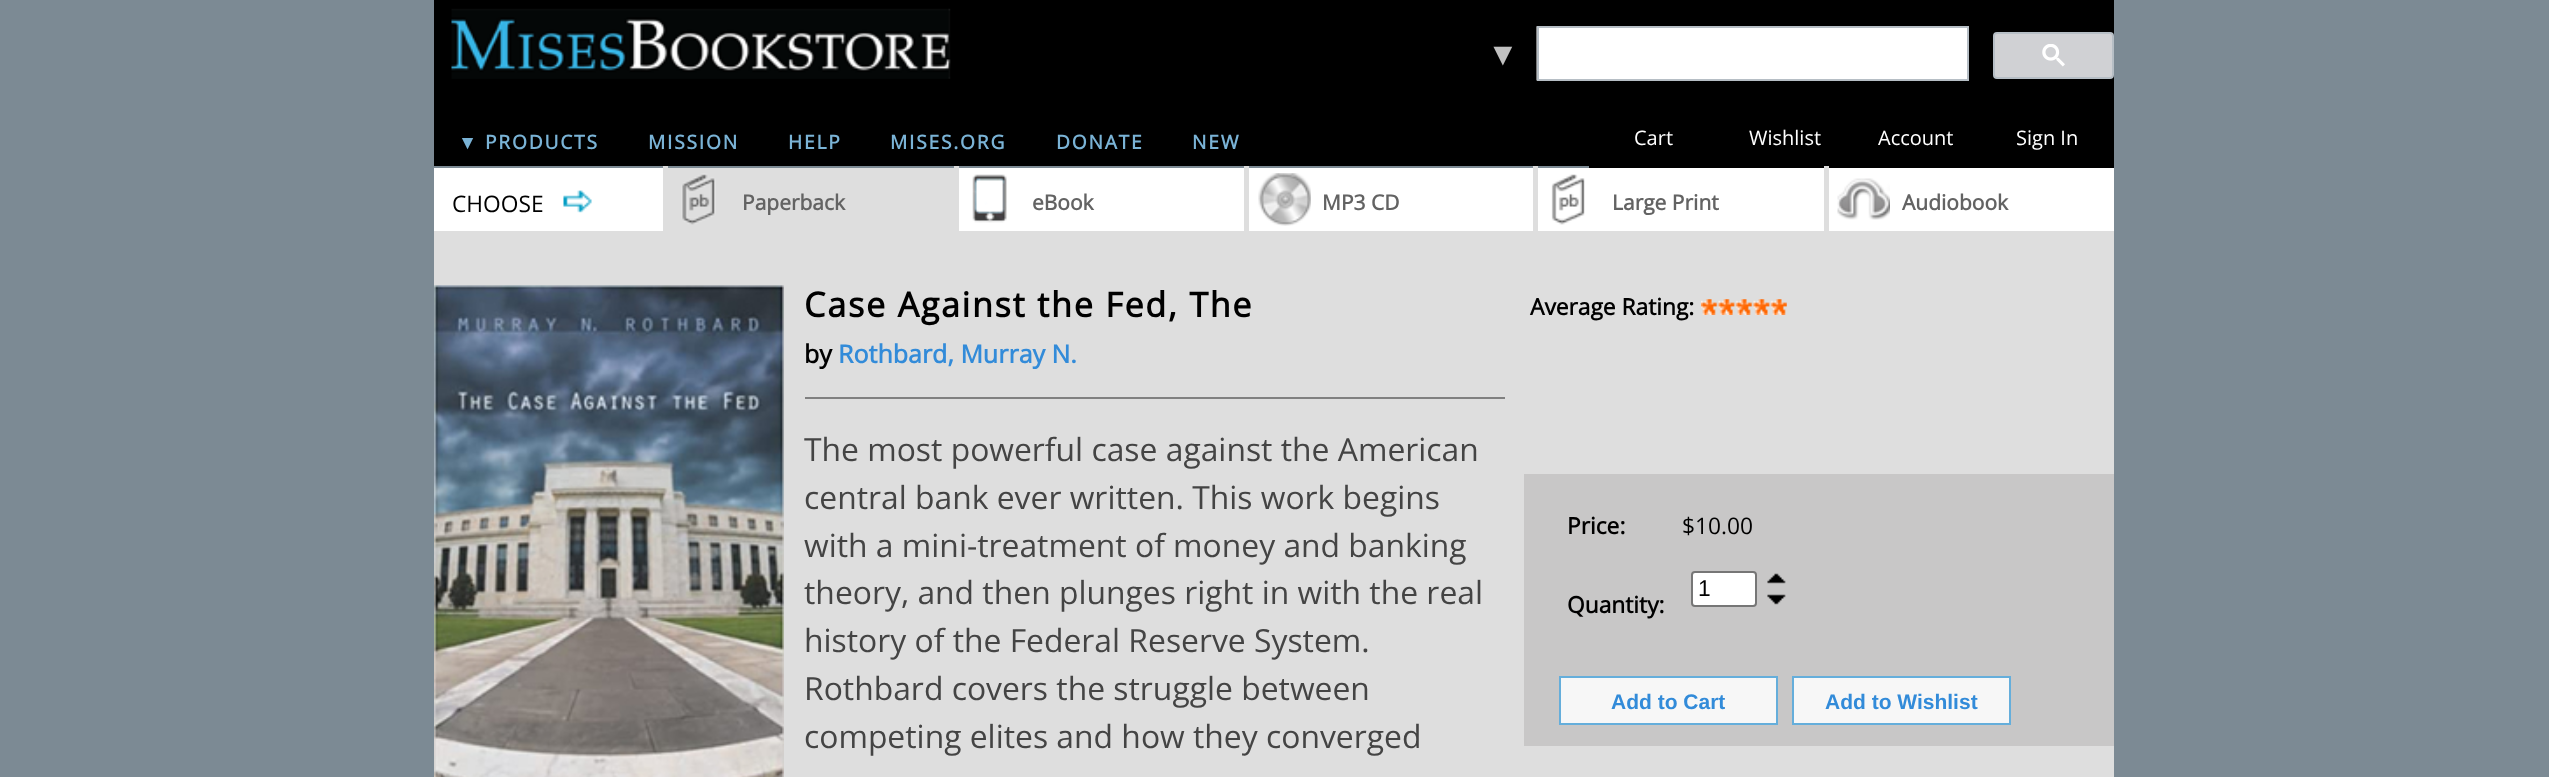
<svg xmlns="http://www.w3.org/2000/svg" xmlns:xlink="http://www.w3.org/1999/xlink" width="2549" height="777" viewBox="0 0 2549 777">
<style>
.cls-1{font:bold 19.25px Liberation Sans;letter-spacing:1.75px;fill:#7ab3d6}
.cls-2{font:bold 19.25px Open Sans;letter-spacing:1.75px;fill:#7ab3d6}
.cls-3{font:32px Liberation Sans;fill:#c0c0c0}
.cls-4{font:20px Open Sans;fill:#ffffff}
.cls-5{font:22.75px Open Sans;fill:#000000}
.cls-6{font:bold 21px Open Sans;fill:#636363}
.cls-7{font:bold 34.1px Open Sans;letter-spacing:1.75px;fill:#000000}
.cls-8{font:bold 25px Open Sans;fill:#000000}
.cls-9{font:bold 25px Open Sans;fill:#328bd9}
.cls-10{font:bold 22.75px Open Sans;fill:#000000}
.cls-11{font:31.85px Open Sans;fill:#444444}
.cls-12{font:22.75px Liberation Sans;fill:#000000}
.cls-13{font:bold 21px Liberation Sans;fill:#328bd9}
</style>
<rect width="100%" height="100%" fill="#7c8a94"/>
<rect fill="#000000" x="434" y="0" width="1680" height="166"/>
<image xlink:href="image0.png" x="451" y="8" width="500" height="71"/>
<image xlink:href="image1.png" x="1536" y="26" width="1" height="55"/>
<rect fill="#ffffff" stroke="#b6bec5" stroke-width="2" x="1538" y="27" width="430" height="53"/>
<rect fill="#d0d1d4" stroke="#b6bec5" stroke-width="2" x="1994" y="33" width="119" height="45" rx="3"/>
<image xlink:href="image2.png" x="2042" y="44" width="23" height="23"/>
<rect fill="#000000" x="1589" y="166" width="525" height="2"/>
<rect fill="#ffffff" x="434" y="168" width="1680" height="63"/>
<image xlink:href="image3.png" x="563" y="190" width="29" height="23"/>
<rect fill="#dedede" x="668" y="168" width="286" height="63"/>
<rect fill="#dedede" x="663" y="166" width="5" height="65"/>
<image xlink:href="image4.png" x="681" y="173" width="35" height="52"/>
<rect fill="#dedede" x="954" y="166" width="5" height="65"/>
<image xlink:href="image5.png" x="972" y="174" width="35" height="49"/>
<rect fill="#dedede" x="1244" y="166" width="5" height="65"/>
<image xlink:href="image6.png" x="1258" y="173" width="53" height="53"/>
<rect fill="#dedede" x="1533" y="166" width="5" height="65"/>
<image xlink:href="image7.png" x="1551" y="174" width="34" height="51"/>
<rect fill="#dedede" x="1824" y="166" width="5" height="65"/>
<image xlink:href="image8.png" x="1837" y="178" width="53" height="42"/>
<rect fill="#dedede" x="434" y="231" width="1680" height="546"/>
<image xlink:href="image9.png" x="434" y="285" width="350" height="492"/>
<rect fill="#808080" x="805" y="397" width="700" height="2"/>
<image xlink:href="image10.png" x="1701" y="299" width="86" height="16"/>
<rect fill="#c8c7c7" x="1524" y="474" width="590" height="272"/>
<rect fill="#ffffff" stroke="#767676" stroke-width="2" x="1692" y="572" width="64" height="34" rx="3"/>
<image xlink:href="image11.png" x="1767" y="573" width="19" height="11"/>
<image xlink:href="image12.png" x="1767" y="594" width="19" height="11"/>
<rect fill="#f7f7f7" stroke="#65aedb" stroke-width="2" x="1560" y="677" width="217" height="47"/>
<rect fill="#f7f7f7" stroke="#65aedb" stroke-width="2" x="1793" y="677" width="217" height="47"/>
<text class="cls-1" x="458" y="149">▼</text>
<text class="cls-2" x="485" y="149">PRODUCTS</text>
<text class="cls-2" x="648" y="149">MISSION</text>
<text class="cls-2" x="788" y="149">HELP</text>
<text class="cls-2" x="890" y="149">MISES.ORG</text>
<text class="cls-2" x="1056" y="149">DONATE</text>
<text class="cls-2" x="1192" y="149">NEW</text>
<text class="cls-3" x="1487" y="65">▼</text>
<text class="cls-4" x="1634" y="145">Cart</text>
<text class="cls-4" x="1749" y="145">Wishlist</text>
<text class="cls-4" x="1878" y="145">Account</text>
<text class="cls-4" x="2016" y="145">Sign In</text>
<text class="cls-5" x="452" y="212">CHOOSE</text>
<text class="cls-6" x="742" y="210">Paperback</text>
<text class="cls-6" x="1032" y="210">eBook</text>
<text class="cls-6" x="1322" y="210">MP3 CD</text>
<text class="cls-6" x="1612" y="210">Large Print</text>
<text class="cls-6" x="1902" y="210">Audiobook</text>
<text class="cls-7" x="804" y="317">Case Against the Fed, The</text>
<text class="cls-8" x="804" y="363">by</text>
<text class="cls-9" x="838" y="363">Rothbard, Murray N.</text>
<text class="cls-10" x="1530" y="315">Average Rating:</text>
<text class="cls-11"><tspan x="804" y="461">The most powerful case against the American</tspan><tspan x="804" y="509">central bank ever written. This work begins</tspan><tspan x="804" y="557">with a mini-treatment of money and banking</tspan><tspan x="804" y="604">theory, and then plunges right in with the real</tspan><tspan x="804" y="652">history of the Federal Reserve System.</tspan><tspan x="804" y="700">Rothbard covers the struggle between</tspan><tspan x="804" y="748">competing elites and how they converged</tspan></text>
<text class="cls-10" x="1567" y="534">Price:</text>
<text class="cls-5" x="1682" y="534">$10.00</text>
<text class="cls-12" x="1698" y="596">1</text>
<text class="cls-10" x="1567" y="613">Quantity:</text>
<text class="cls-13" x="1611" y="709">Add to Cart</text>
<text class="cls-13" x="1825" y="709">Add to Wishlist</text>
</svg>
